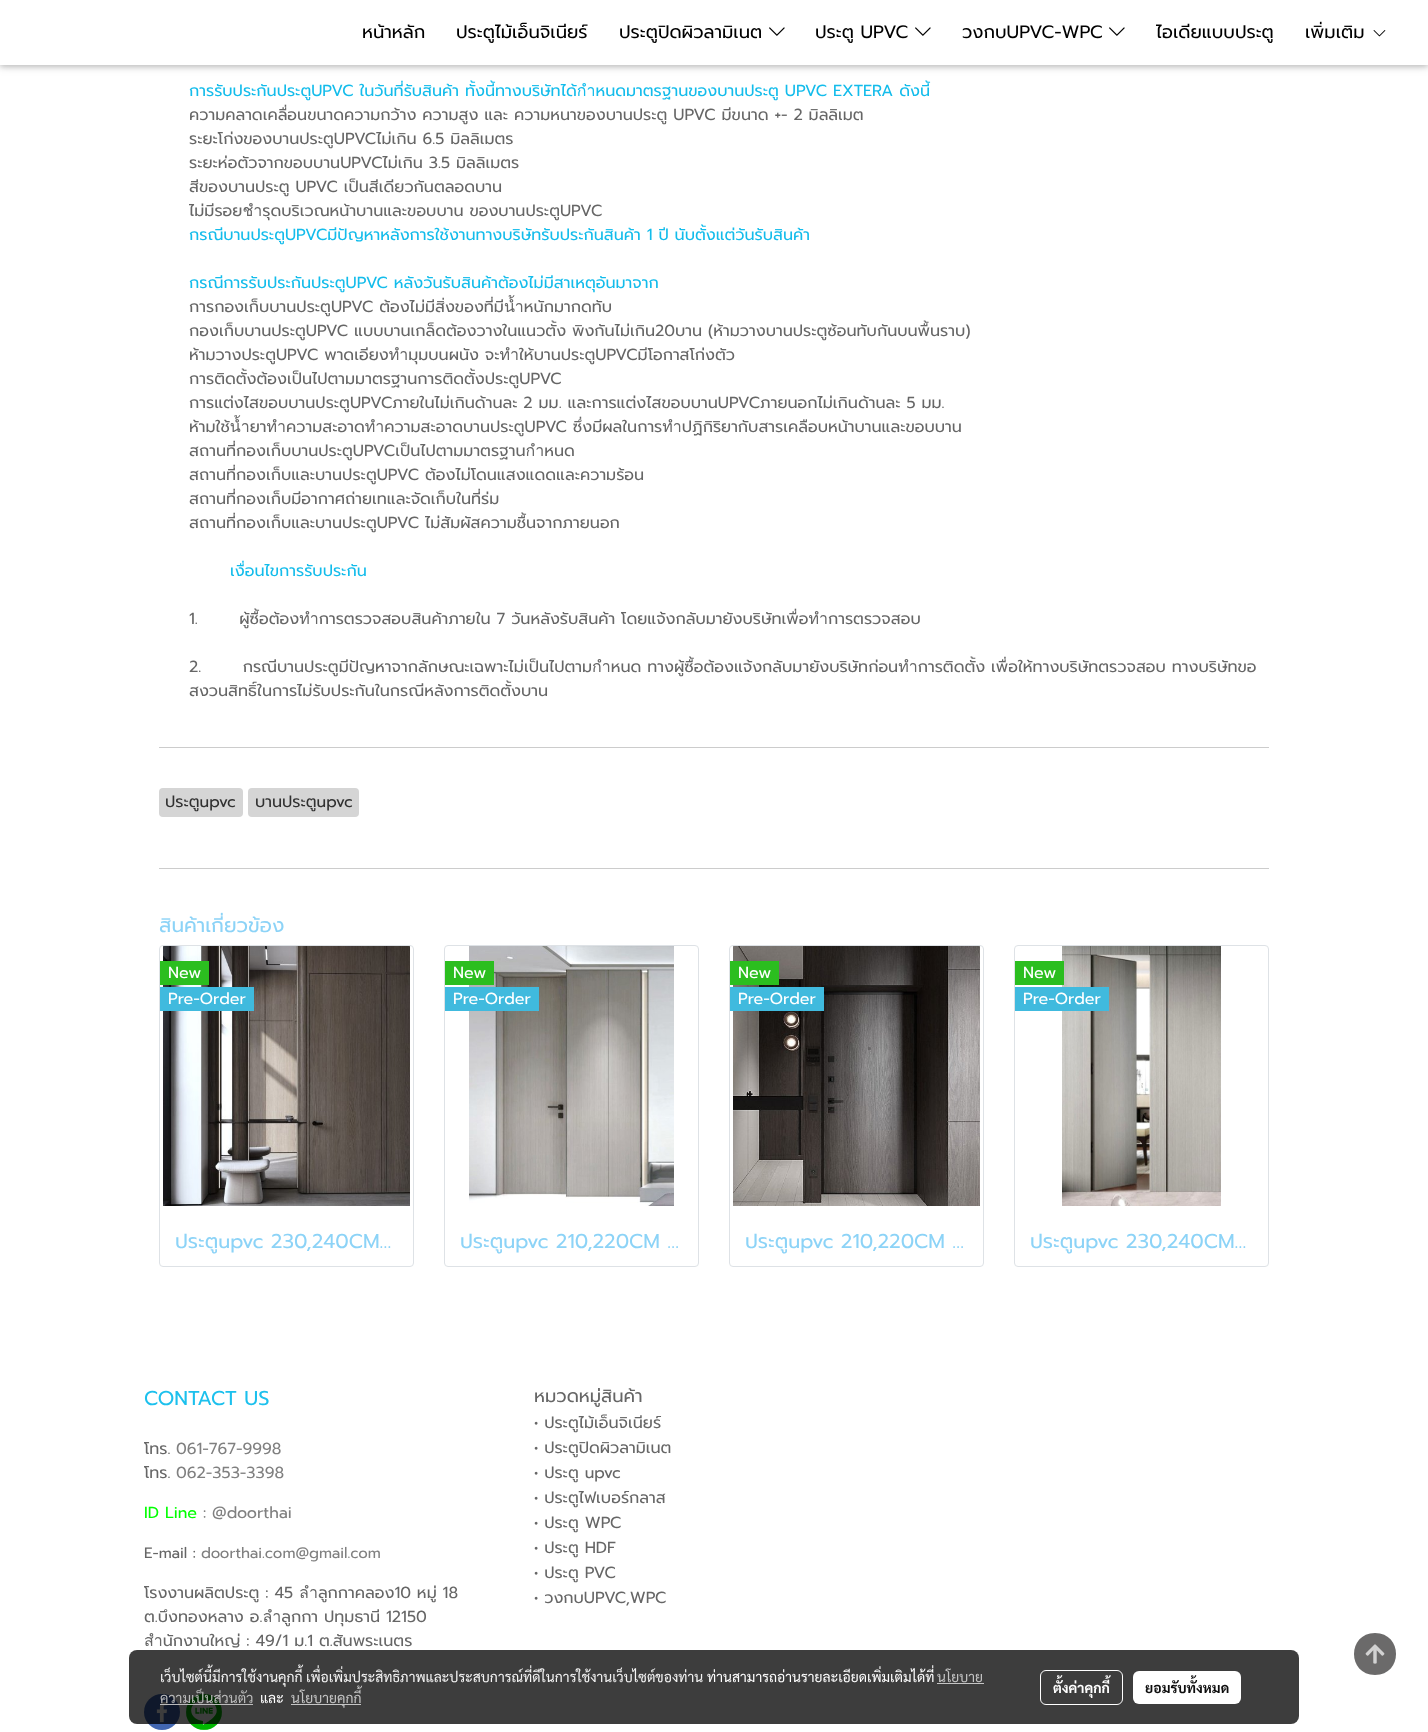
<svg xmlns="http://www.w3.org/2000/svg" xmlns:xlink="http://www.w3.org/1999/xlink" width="1428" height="1732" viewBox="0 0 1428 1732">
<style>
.cls-1{font:18px Prompt;fill:#000000}
.cls-2{font:16px Prompt;fill:#13bceb}
.cls-3{font:16px Prompt;fill:#666666}
.cls-4{font:16px Prompt;fill:#303030}
.cls-5{font:20px Prompt;fill:#8cd3f7}
.cls-6{font:16px Prompt;fill:#ffffff}
.cls-7{font:20px Prompt;fill:#1cc0ed}
.cls-8{font:16px Prompt;fill:#808080}
.cls-9{font:16px Prompt;fill:#00ff00}
.cls-10{font:15px Prompt;fill:#666666}
.cls-11{font:15px Prompt;fill:#808080}
.cls-12{font:18px Prompt;fill:#666666}
.cls-13{font:14px Sarabun;fill:#f5f5f5}
.cls-14{font:14px Sarabun;fill:#ffffff}
.cls-15{font:14px Sarabun;fill:#c5c5c5}
.cls-16{font:14px Sarabun;fill:#bbbbbb}
.cls-17{font:bold 14px Sarabun;fill:#ffffff}
.cls-18{font:bold 14px Sarabun;fill:#0d0d0d}
</style>
<rect width="100%" height="100%" fill="#ffffff"/>
<rect fill="#000000" fill-opacity="0.12" filter="blur(5px)" x="0" y="2" width="1428" height="65"/>
<rect fill="#000000" fill-opacity="0.16" filter="blur(2.5px)" x="0" y="2" width="1428" height="65"/>
<rect fill="#ffffff" x="0" y="0" width="1428" height="65"/>
<image xlink:href="image0.png" x="769" y="27" width="16" height="9"/>
<image xlink:href="image0.png" x="915" y="27" width="16" height="9"/>
<image xlink:href="image0.png" x="1109" y="27" width="16" height="9"/>
<image xlink:href="image1.png" x="1373" y="30" width="13" height="7"/>
<rect fill="#cccccc" x="159" y="747" width="1110" height="1"/>
<rect fill="#d5d5d5" x="159" y="788" width="84" height="29" rx="4"/>
<rect fill="#d5d5d5" x="248" y="788" width="111" height="29" rx="4"/>
<rect fill="#cccccc" x="159" y="868" width="1110" height="1"/>
<rect fill="none" stroke="#dee2e6" x="159.5" y="945.5" width="254" height="321" rx="3.5"/>
<image xlink:href="image2.png" x="163" y="946" width="247" height="260"/>
<rect fill="#2bbe1f" x="160" y="961" width="49" height="24"/>
<rect fill="#40bade" x="160" y="987" width="94" height="24"/>
<rect fill="none" stroke="#dee2e6" x="444.5" y="945.5" width="254" height="321" rx="3.5"/>
<image xlink:href="image3.png" x="469" y="946" width="205" height="260"/>
<rect fill="#2bbe1f" x="445" y="961" width="49" height="24"/>
<rect fill="#40bade" x="445" y="987" width="94" height="24"/>
<rect fill="none" stroke="#dee2e6" x="729.5" y="945.5" width="254" height="321" rx="3.5"/>
<image xlink:href="image4.png" x="733" y="946" width="247" height="260"/>
<rect fill="#2bbe1f" x="730" y="961" width="49" height="24"/>
<rect fill="#40bade" x="730" y="987" width="94" height="24"/>
<rect fill="none" stroke="#dee2e6" x="1014.5" y="945.5" width="254" height="321" rx="3.5"/>
<image xlink:href="image5.png" x="1062" y="946" width="159" height="260"/>
<rect fill="#2bbe1f" x="1015" y="961" width="49" height="24"/>
<rect fill="#40bade" x="1015" y="987" width="94" height="24"/>
<circle fill="#4267b2" cx="162" cy="1712" r="18"/>
<image xlink:href="image6.png" x="156" y="1701" width="12" height="22"/>
<circle fill="#00b800" cx="204" cy="1712" r="18"/>
<image xlink:href="image7.png" x="186" y="1694" width="36" height="36"/>
<path fill="#6b6a6a" d="M1375 1633C1347 1633 1347 1675 1375 1675C1403 1675 1403 1633 1375 1633Z"/>
<image xlink:href="image8.png" x="1365" y="1644" width="20" height="20"/>
<rect fill="#000000" fill-opacity="0.76" x="129" y="1650" width="1170" height="74" rx="8"/>
<rect fill="#c5c5c5" x="937" y="1683" width="47" height="1"/>
<rect fill="#c2c2c2" fill-opacity="0.95" x="160" y="1704" width="93" height="1"/>
<rect fill="#c5c5c5" x="291" y="1704" width="70" height="1"/>
<rect fill="none" stroke="#ffffff" x="1040.5" y="1670.5" width="82" height="34" rx="5.5"/>
<rect fill="#ffffff" x="1133" y="1671" width="108" height="33" rx="6"/>
<text class="cls-1" x="362" y="38">หน้าหลัก</text>
<text class="cls-1" x="456" y="38">ประตูไม้เอ็นจิเนียร์</text>
<text class="cls-1" x="619" y="38">ประตูปิดผิวลามิเนต</text>
<text class="cls-1" x="815" y="38">ประตู UPVC</text>
<text class="cls-1" x="962" y="38">วงกบUPVC-WPC</text>
<text class="cls-1" x="1156" y="38">ไอเดียแบบประตู</text>
<text class="cls-1" x="1305" y="38">เพิ่มเติม</text>
<text class="cls-2" x="189" y="96">การรับประกันประตูUPVC ในวันที่รับสินค้า ทั้งนี้ทางบริษัทได้กำหนดมาตรฐานของบานประตู UPVC EXTERA ดังนี้</text>
<text class="cls-3"><tspan x="189" y="120">ความคลาดเคลื่อนขนาดความกว้าง ความสูง และ ความหนาของบานประตู UPVC มีขนาด +- 2 มิลลิเมต</tspan><tspan x="189" y="144">ระยะโก่งของบานประตูUPVCไม่เกิน 6.5 มิลลิเมตร</tspan><tspan x="189" y="168">ระยะห่อตัวจากขอบบานUPVCไม่เกิน 3.5 มิลลิเมตร</tspan><tspan x="189" y="192">สีของบานประตู UPVC เป็นสีเดียวกันตลอดบาน</tspan><tspan x="189" y="216">ไม่มีรอยชำรุดบริเวณหน้าบานและขอบบาน ของบานประตูUPVC</tspan></text>
<text class="cls-2" x="189" y="240">กรณีบานประตูUPVCมีปัญหาหลังการใช้งานทางบริษัทรับประกันสินค้า 1 ปี นับตั้งแต่วันรับสินค้า</text>
<text class="cls-2" x="189" y="288">กรณีการรับประกันประตูUPVC หลังวันรับสินค้าต้องไม่มีสาเหตุอันมาจาก</text>
<text class="cls-3"><tspan x="189" y="312">การกองเก็บบานประตูUPVC ต้องไม่มีสิ่งของที่มีน้ำหนักมากดทับ</tspan><tspan x="189" y="336">กองเก็บบานประตูUPVC แบบบานเกล็ดต้องวางในแนวตั้ง พิงกันไม่เกิน20บาน (ห้ามวางบานประตูซ้อนทับกันบนพื้นราบ)</tspan><tspan x="189" y="360">ห้ามวางประตูUPVC พาดเอียงทำมุมบนผนัง จะทำให้บานประตูUPVCมีโอกาสโก่งตัว</tspan><tspan x="189" y="384">การติดตั้งต้องเป็นไปตามมาตรฐานการติดตั้งประตูUPVC</tspan><tspan x="189" y="408">การแต่งไสขอบบานประตูUPVCภายในไม่เกินด้านละ 2 มม. และการแต่งไสขอบบานUPVCภายนอกไม่เกินด้านละ 5 มม.</tspan><tspan x="189" y="432">ห้ามใช้น้ำยาทำความสะอาดทำความสะอาดบานประตูUPVC ซึ่งมีผลในการทำปฏิกิริยากับสารเคลือบหน้าบานและขอบบาน</tspan><tspan x="189" y="456">สถานที่กองเก็บบานประตูUPVCเป็นไปตามมาตรฐานกำหนด</tspan><tspan x="189" y="480">สถานที่กองเก็บและบานประตูUPVC ต้องไม่โดนแสงแดดและความร้อน</tspan><tspan x="189" y="504">สถานที่กองเก็บมีอากาศถ่ายเทและจัดเก็บในที่ร่ม</tspan><tspan x="189" y="528">สถานที่กองเก็บและบานประตูUPVC ไม่สัมผัสความชื้นจากภายนอก</tspan></text>
<text class="cls-2" x="230" y="576">เงื่อนไขการรับประกัน</text>
<text class="cls-3" xml:space="preserve" x="189" y="624">1.       ผู้ซื้อต้องทำการตรวจสอบสินค้าภายใน 7 วันหลังรับสินค้า โดยแจ้งกลับมายังบริษัทเพื่อทำการตรวจสอบ</text>
<text class="cls-3" xml:space="preserve"><tspan x="189" y="672">2.       กรณีบานประตูมีปัญหาจากลักษณะเฉพาะไม่เป็นไปตามกำหนด ทางผู้ซื้อต้องแจ้งกลับมายังบริษัทก่อนทำการติดตั้ง เพื่อให้ทางบริษัทตรวจสอบ ทางบริษัทขอ</tspan><tspan x="189" y="696">สงวนสิทธิ์ในการไม่รับประกันในกรณีหลังการติดตั้งบาน</tspan></text>
<text class="cls-4" x="165" y="807">ประตูupvc</text>
<text class="cls-4" x="255" y="807">บานประตูupvc</text>
<text class="cls-5" x="159" y="932">สินค้าเกี่ยวข้อง</text>
<text class="cls-6"><tspan x="168" y="978">New</tspan><tspan x="168" y="1004">Pre-Order</tspan></text>
<text class="cls-5" x="175" y="1248">ประตูupvc 230,240CM…</text>
<text class="cls-6"><tspan x="453" y="978">New</tspan><tspan x="453" y="1004">Pre-Order</tspan></text>
<text class="cls-5" x="460" y="1248">ประตูupvc 210,220CM …</text>
<text class="cls-6"><tspan x="738" y="978">New</tspan><tspan x="738" y="1004">Pre-Order</tspan></text>
<text class="cls-5" x="745" y="1248">ประตูupvc 210,220CM …</text>
<text class="cls-6"><tspan x="1023" y="978">New</tspan><tspan x="1023" y="1004">Pre-Order</tspan></text>
<text class="cls-5" x="1030" y="1248">ประตูupvc 230,240CM…</text>
<text class="cls-7" x="144" y="1405">CONTACT US</text>
<text class="cls-3" x="144" y="1454">โทร.</text>
<text class="cls-8" x="176" y="1454">061-767-9998</text>
<text class="cls-3" x="144" y="1478">โทร.</text>
<text class="cls-8" x="176" y="1478">062-353-3398</text>
<text class="cls-9" x="144" y="1518">ID Line</text>
<text class="cls-8" x="203" y="1518">: @doorthai</text>
<text class="cls-10" x="144" y="1558">E-mail :</text>
<text class="cls-11" x="201" y="1558">doorthai.com@gmail.com</text>
<text class="cls-3"><tspan x="144" y="1598">โรงงานผลิตประตู : 45 ลำลูกกาคลอง10 หมู่ 18</tspan><tspan x="144" y="1622">ต.บึงทองหลาง อ.ลำลูกกา ปทุมธานี 12150</tspan><tspan x="144" y="1646">สำนักงานใหญ่ : 49/1 ม.1 ต.สันพระเนตร</tspan></text>
<text class="cls-12" x="534" y="1402">หมวดหมู่สินค้า</text>
<text class="cls-3"><tspan x="534" y="1428">• ประตูไม้เอ็นจิเนียร์</tspan><tspan x="534" y="1453">• ประตูปิดผิวลามิเนต</tspan><tspan x="534" y="1478">• ประตู upvc</tspan><tspan x="534" y="1503">• ประตูไฟเบอร์กลาส</tspan><tspan x="534" y="1528">• ประตู WPC</tspan><tspan x="534" y="1553">• ประตู HDF</tspan><tspan x="534" y="1578">• ประตู PVC</tspan><tspan x="534" y="1603">• วงกบUPVC,WPC</tspan></text>
<text class="cls-13" x="160" y="1682">เว็บไซต์นี้มีการใช้งานคุกกี้ เพื่อเพิ่มประสิทธิภาพและประสบการณ์ที่ดีในการใช้งานเว็บไซต์ของท่าน</text>
<text class="cls-14" x="707" y="1682">ท่านสามารถอ่านรายละเอียดเพิ่มเติมได้ที่</text>
<text class="cls-15" x="937" y="1682">นโยบาย</text>
<text class="cls-16" x="160" y="1703">ความเป็นส่วนตัว</text>
<text class="cls-14" x="260" y="1703">และ</text>
<text class="cls-15" x="291" y="1703">นโยบายคุกกี้</text>
<text class="cls-17" x="1053" y="1693">ตั้งค่าคุกกี้</text>
<text class="cls-18" x="1145" y="1693">ยอมรับทั้งหมด</text>
</svg>
